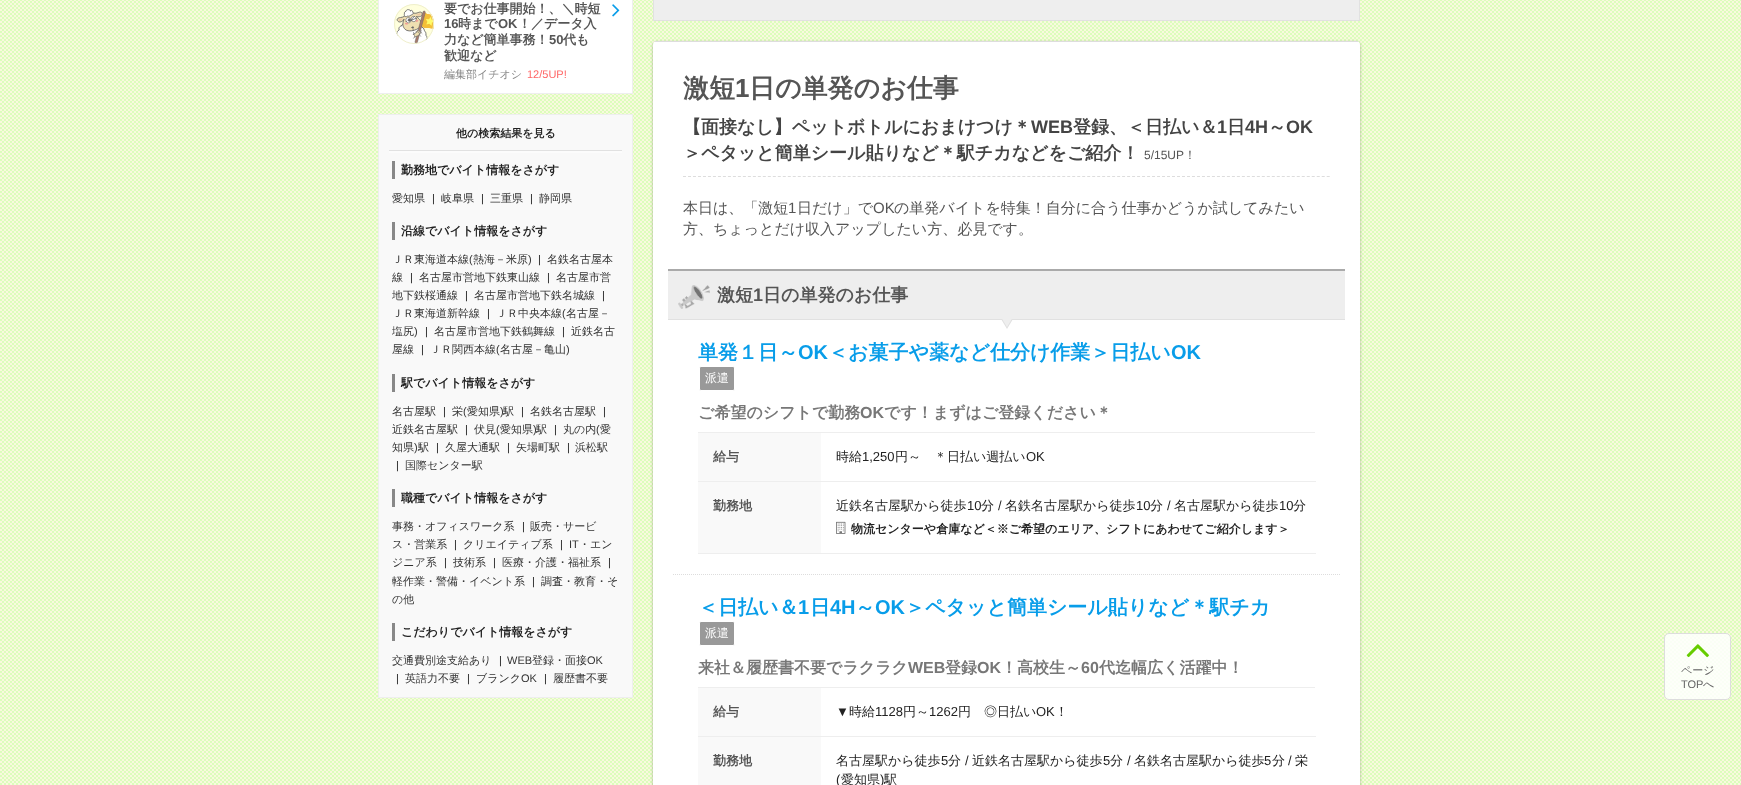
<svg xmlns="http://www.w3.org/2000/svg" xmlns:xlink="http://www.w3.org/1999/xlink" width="1741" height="785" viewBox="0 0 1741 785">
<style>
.cls-1{font:bold 13px WenQuanYi Zen Hei;fill:#555555}
.cls-2{font:bold 13px Liberation Sans;fill:#555555}
.cls-3{font:500 11px WenQuanYi Zen Hei;fill:#888888}
.cls-4{font:11px Liberation Sans;fill:#ff6666}
.cls-5{font:bold 11px WenQuanYi Zen Hei;fill:#222222}
.cls-6{font:bold 12px WenQuanYi Zen Hei;fill:#222222}
.cls-7{font:500 11px WenQuanYi Zen Hei;fill:#333333}
.cls-8{font:11px Liberation Sans;fill:#222222}
.cls-9{font:11px Liberation Sans;fill:#333333}
.cls-10{font:bold 26px WenQuanYi Zen Hei;fill:#555555}
.cls-11{font:bold 26px Liberation Sans;fill:#555555}
.cls-12{font:bold 18px WenQuanYi Zen Hei;fill:#444444}
.cls-13{font:bold 18px Liberation Sans;fill:#444444}
.cls-14{font:12px Liberation Sans;fill:#555555}
.cls-15{font:500 12px WenQuanYi Zen Hei;fill:#555555}
.cls-16{font:500 15px WenQuanYi Zen Hei;fill:#555555}
.cls-17{font:15px Liberation Sans;fill:#555555}
.cls-18{font:bold 18px WenQuanYi Zen Hei;fill:#555555}
.cls-19{font:bold 18px Liberation Sans;fill:#555555}
.cls-20{font:bold 20px WenQuanYi Zen Hei;fill:#089de9}
.cls-21{font:bold 20px Liberation Sans;fill:#089de9}
.cls-22{font:500 12px WenQuanYi Zen Hei;fill:#ffffff}
.cls-23{font:bold 16px WenQuanYi Zen Hei;fill:#777777}
.cls-24{font:bold 16px Liberation Sans;fill:#777777}
.cls-25{font:500 13px WenQuanYi Zen Hei;fill:#222222}
.cls-26{font:13px Liberation Sans;fill:#222222}
.cls-27{font:500 11px WenQuanYi Zen Hei;fill:#666666}
.cls-28{font:11px Liberation Sans;fill:#666666}
</style>
<rect width="100%" height="100%" fill="#ffffff"/>
<image xlink:href="image0.png" x="0" y="0" width="1741" height="785"/>
<rect fill="#ffffff" stroke="#eeeeee" x="378.5" y="-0.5" width="254" height="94"/>
<circle fill="#ffffdd" cx="414" cy="24" r="20"/>
<image xlink:href="image1.png" x="396" y="9" width="38" height="35"/>
<circle fill="none" stroke="#efefcd" cx="414" cy="24" r="19.5"/>
<image xlink:href="image2.png" x="612" y="4" width="8" height="13"/>
<rect fill="#f9f9f9" stroke="#eeeeee" x="378.5" y="114.5" width="254" height="583"/>
<rect fill="#fcfcfc" x="389" y="151" width="233" height="2"/>
<rect fill="#e1e1e1" x="389" y="150" width="233" height="1"/>
<rect fill="#888888" x="392" y="161" width="3" height="18"/>
<rect fill="#888888" x="392" y="222" width="3" height="18"/>
<rect fill="#888888" x="392" y="374" width="3" height="18"/>
<rect fill="#888888" x="392" y="489" width="3" height="18"/>
<rect fill="#888888" x="392" y="623" width="3" height="18"/>
<rect fill="#eeeeee" stroke="#e1e1e1" x="653.5" y="-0.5" width="706" height="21"/>
<rect fill="#000000" fill-opacity="0.3" filter="blur(1.5px)" x="653" y="42" width="707" height="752" rx="4"/>
<rect fill="#ffffff" x="653" y="41" width="707" height="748" rx="4"/>
<rect fill="#dddddd" x="655" y="41" width="703" height="1"/>
<path fill="none" stroke="#dddddd" stroke-dasharray="3 1.99" d="M683 176.5H1330"/>
<rect fill="#eeeeee" x="668" y="271" width="677" height="48"/>
<rect fill="#aaaaaa" x="668" y="269" width="677" height="2"/>
<rect fill="#e1e1e1" x="668" y="319" width="677" height="1"/>
<image xlink:href="image3.png" x="678" y="285" width="32" height="24"/>
<path fill="#e1e1e1" d="M1001 319H1013L1007 329Z"/>
<path fill="#eeeeee" d="M1001 317H1013L1007 327Z"/>
<rect fill="#999999" stroke="#ffffff" x="699.5" y="366.5" width="35" height="24" rx="1.5"/>
<rect fill="#eeeeee" x="698" y="432" width="617" height="1"/>
<rect fill="#f9f9f9" x="698" y="433" width="123" height="48"/>
<rect fill="#eeeeee" x="698" y="481" width="618" height="1"/>
<rect fill="#f9f9f9" x="698" y="482" width="123" height="71"/>
<rect fill="#eeeeee" x="698" y="553" width="618" height="1"/>
<image xlink:href="image4.png" x="836" y="521" width="10" height="13"/>
<path fill="none" stroke="#dddddd" stroke-dasharray="1 1" d="M673 574.5H1340"/>
<rect fill="#999999" stroke="#ffffff" x="699.5" y="621.5" width="35" height="24" rx="1.5"/>
<rect fill="#eeeeee" x="698" y="687" width="617" height="1"/>
<rect fill="#f9f9f9" x="698" y="688" width="123" height="48"/>
<rect fill="#eeeeee" x="698" y="736" width="618" height="1"/>
<rect fill="#f9f9f9" x="698" y="737" width="123" height="48"/>
<rect fill="#ffffff" fill-opacity="0.85" stroke="#dddddd" x="1664.5" y="633.5" width="66" height="66" rx="4.5"/>
<image xlink:href="image5.png" x="1686" y="644" width="23" height="14"/>
<text class="cls-1" x="444" y="13">要でお仕事開始！、＼時短</text>
<text class="cls-2" x="444" y="28">16</text>
<text class="cls-1" x="458" y="28">時まで</text>
<text class="cls-2" x="498" y="28">OK</text>
<text class="cls-1" x="518" y="28">！／データ入</text>
<text class="cls-1" x="444" y="44">力など簡単事務！</text>
<text class="cls-2" x="549" y="44">50</text>
<text class="cls-1" x="563" y="44">代も</text>
<text class="cls-1" x="444" y="60">歓迎など</text>
<text class="cls-3" x="444" y="78">編集部イチオシ</text>
<text class="cls-4" x="527" y="78">12/5UP!</text>
<text class="cls-5" x="456" y="137">他の検索結果を見る</text>
<text class="cls-6" x="401" y="174">勤務地でバイト情報をさがす</text>
<text class="cls-7" x="392" y="202">愛知県</text>
<text class="cls-8" x="432" y="202">|</text>
<text class="cls-7" x="441" y="202">岐阜県</text>
<text class="cls-8" x="481" y="202">|</text>
<text class="cls-7" x="490" y="202">三重県</text>
<text class="cls-8" x="530" y="202">|</text>
<text class="cls-7" x="539" y="202">静岡県</text>
<text class="cls-6" x="401" y="235">沿線でバイト情報をさがす</text>
<text class="cls-7" x="392" y="263">ＪＲ東海道本線</text>
<text class="cls-9" x="469" y="263">(</text>
<text class="cls-7" x="473" y="263">熱海－米原</text>
<text class="cls-9" x="528" y="263">)</text>
<text class="cls-8" x="538" y="263">|</text>
<text class="cls-7" x="547" y="263">名鉄名古屋本</text>
<text class="cls-7" x="392" y="281">線</text>
<text class="cls-8" x="410" y="281">|</text>
<text class="cls-7" x="419" y="281">名古屋市営地下鉄東山線</text>
<text class="cls-8" x="547" y="281">|</text>
<text class="cls-7" x="556" y="281">名古屋市営</text>
<text class="cls-7" x="392" y="299">地下鉄桜通線</text>
<text class="cls-8" x="465" y="299">|</text>
<text class="cls-7" x="474" y="299">名古屋市営地下鉄名城線</text>
<text class="cls-8" x="602" y="299">|</text>
<text class="cls-7" x="392" y="317">ＪＲ東海道新幹線</text>
<text class="cls-8" x="487" y="317">|</text>
<text class="cls-7" x="496" y="317">ＪＲ中央本線</text>
<text class="cls-9" x="562" y="317">(</text>
<text class="cls-7" x="566" y="317">名古屋－</text>
<text class="cls-7" x="392" y="335">塩尻</text>
<text class="cls-9" x="414" y="335">)</text>
<text class="cls-8" x="425" y="335">|</text>
<text class="cls-7" x="434" y="335">名古屋市営地下鉄鶴舞線</text>
<text class="cls-8" x="562" y="335">|</text>
<text class="cls-7" x="571" y="335">近鉄名古</text>
<text class="cls-7" x="392" y="353">屋線</text>
<text class="cls-8" x="421" y="353">|</text>
<text class="cls-7" x="430" y="353">ＪＲ関西本線</text>
<text class="cls-9" x="496" y="353">(</text>
<text class="cls-7" x="500" y="353">名古屋－亀山</text>
<text class="cls-9" x="566" y="353">)</text>
<text class="cls-6" x="401" y="387">駅でバイト情報をさがす</text>
<text class="cls-7" x="392" y="415">名古屋駅</text>
<text class="cls-8" x="443" y="415">|</text>
<text class="cls-7" x="452" y="415">栄</text>
<text class="cls-9" x="463" y="415">(</text>
<text class="cls-7" x="467" y="415">愛知県</text>
<text class="cls-9" x="500" y="415">)</text>
<text class="cls-7" x="503" y="415">駅</text>
<text class="cls-8" x="521" y="415">|</text>
<text class="cls-7" x="530" y="415">名鉄名古屋駅</text>
<text class="cls-8" x="603" y="415">|</text>
<text class="cls-7" x="392" y="433">近鉄名古屋駅</text>
<text class="cls-8" x="465" y="433">|</text>
<text class="cls-7" x="474" y="433">伏見</text>
<text class="cls-9" x="496" y="433">(</text>
<text class="cls-7" x="500" y="433">愛知県</text>
<text class="cls-9" x="533" y="433">)</text>
<text class="cls-7" x="536" y="433">駅</text>
<text class="cls-8" x="554" y="433">|</text>
<text class="cls-7" x="563" y="433">丸の内</text>
<text class="cls-9" x="596" y="433">(</text>
<text class="cls-7" x="600" y="433">愛</text>
<text class="cls-7" x="392" y="451">知県</text>
<text class="cls-9" x="414" y="451">)</text>
<text class="cls-7" x="418" y="451">駅</text>
<text class="cls-8" x="436" y="451">|</text>
<text class="cls-7" x="445" y="451">久屋大通駅</text>
<text class="cls-8" x="507" y="451">|</text>
<text class="cls-7" x="516" y="451">矢場町駅</text>
<text class="cls-8" x="567" y="451">|</text>
<text class="cls-7" x="575" y="451">浜松駅</text>
<text class="cls-8" x="396" y="469">|</text>
<text class="cls-7" x="405" y="469">国際センター駅</text>
<text class="cls-6" x="401" y="502">職種でバイト情報をさがす</text>
<text class="cls-7" x="392" y="530">事務・オフィスワーク系</text>
<text class="cls-8" x="522" y="530">|</text>
<text class="cls-7" x="530" y="530">販売・サービ</text>
<text class="cls-7" x="392" y="548">ス・営業系</text>
<text class="cls-8" x="454" y="548">|</text>
<text class="cls-7" x="463" y="548">クリエイティブ系</text>
<text class="cls-8" x="560" y="548">|</text>
<text class="cls-9" x="569" y="548">IT</text>
<text class="cls-7" x="579" y="548">・エン</text>
<text class="cls-7" x="392" y="566">ジニア系</text>
<text class="cls-8" x="444" y="566">|</text>
<text class="cls-7" x="453" y="566">技術系</text>
<text class="cls-8" x="493" y="566">|</text>
<text class="cls-7" x="502" y="566">医療・介護・福祉系</text>
<text class="cls-8" x="608" y="566">|</text>
<text class="cls-7" x="392" y="585">軽作業・警備・イベント系</text>
<text class="cls-8" x="532" y="585">|</text>
<text class="cls-7" x="541" y="585">調査・教育・そ</text>
<text class="cls-7" x="392" y="603">の他</text>
<text class="cls-6" x="401" y="636">こだわりでバイト情報をさがす</text>
<text class="cls-7" x="392" y="664">交通費別途支給あり</text>
<text class="cls-8" x="499" y="664">|</text>
<text class="cls-9" x="507" y="664">WEB</text>
<text class="cls-7" x="532" y="664">登録・面接</text>
<text class="cls-9" x="587" y="664">OK</text>
<text class="cls-8" x="396" y="682">|</text>
<text class="cls-7" x="405" y="682">英語力不要</text>
<text class="cls-8" x="467" y="682">|</text>
<text class="cls-7" x="476" y="682">ブランク</text>
<text class="cls-9" x="521" y="682">OK</text>
<text class="cls-8" x="544" y="682">|</text>
<text class="cls-7" x="553" y="682">履歴書不要</text>
<text class="cls-10" x="683" y="97">激短</text>
<text class="cls-11" x="735" y="97">1</text>
<text class="cls-10" x="749" y="97">日の単発のお仕事</text>
<text class="cls-12" x="683" y="133">【面接なし】ペットボトルにおまけつけ＊</text>
<text class="cls-13" x="1031" y="133">WEB</text>
<text class="cls-12" x="1073" y="133">登録、＜日払い＆</text>
<text class="cls-13" x="1217" y="133">1</text>
<text class="cls-12" x="1227" y="133">日</text>
<text class="cls-13" x="1245" y="133">4H</text>
<text class="cls-12" x="1268" y="133">～</text>
<text class="cls-13" x="1286" y="133">OK</text>
<text class="cls-12" x="683" y="159">＞ペタッと簡単シール貼りなど＊駅チカなどをご紹介！</text>
<text class="cls-14" x="1144" y="159">5/15UP</text>
<text class="cls-15" x="1184" y="159">！</text>
<text class="cls-16" x="683" y="213">本日は、「激短</text>
<text class="cls-17" x="788" y="213">1</text>
<text class="cls-16" x="797" y="213">日だけ」で</text>
<text class="cls-17" x="873" y="213">OK</text>
<text class="cls-16" x="894" y="213">の単発バイトを特集！自分に合う仕事かどうか試してみたい</text>
<text class="cls-16" x="683" y="234">方、ちょっとだけ収入アップしたい方、必見です。</text>
<text class="cls-18" x="717" y="301">激短</text>
<text class="cls-19" x="753" y="301">1</text>
<text class="cls-18" x="763" y="301">日の単発のお仕事</text>
<text class="cls-20" x="698" y="359">単発１日～</text>
<text class="cls-21" x="798" y="359">OK</text>
<text class="cls-20" x="828" y="359">＜お菓子や薬など仕分け作業＞日払い</text>
<text class="cls-21" x="1171" y="359">OK</text>
<text class="cls-22" x="705" y="382">派遣</text>
<text class="cls-23" x="698" y="418">ご希望のシフトで勤務</text>
<text class="cls-24" x="860" y="418">OK</text>
<text class="cls-23" x="884" y="418">です！まずはご登録ください＊</text>
<text class="cls-1" x="713" y="461">給与</text>
<text class="cls-25" x="836" y="461">時給</text>
<text class="cls-26" x="862" y="461">1,250</text>
<text class="cls-25" x="895" y="461">円～　＊日払い週払い</text>
<text class="cls-26" x="1026" y="461">OK</text>
<text class="cls-1" x="713" y="510">勤務地</text>
<text class="cls-25" x="836" y="510">近鉄名古屋駅から徒歩</text>
<text class="cls-26" x="967" y="510">10</text>
<text class="cls-25" x="981" y="510">分</text>
<text class="cls-26" x="998" y="510">/</text>
<text class="cls-25" x="1005" y="510">名鉄名古屋駅から徒歩</text>
<text class="cls-26" x="1136" y="510">10</text>
<text class="cls-25" x="1150" y="510">分</text>
<text class="cls-26" x="1167" y="510">/</text>
<text class="cls-25" x="1174" y="510">名古屋駅から徒歩</text>
<text class="cls-26" x="1279" y="510">10</text>
<text class="cls-25" x="1293" y="510">分</text>
<text class="cls-6" x="851" y="533">物流センターや倉庫など＜※ご希望のエリア、シフトにあわせてご紹介します＞</text>
<text class="cls-20" x="698" y="614">＜日払い＆</text>
<text class="cls-21" x="798" y="614">1</text>
<text class="cls-20" x="810" y="614">日</text>
<text class="cls-21" x="830" y="614">4H</text>
<text class="cls-20" x="855" y="614">～</text>
<text class="cls-21" x="875" y="614">OK</text>
<text class="cls-20" x="905" y="614">＞ペタッと簡単シール貼りなど＊駅チカ</text>
<text class="cls-22" x="705" y="637">派遣</text>
<text class="cls-23" x="698" y="673">来社＆履歴書不要でラクラク</text>
<text class="cls-24" x="908" y="673">WEB</text>
<text class="cls-23" x="945" y="673">登録</text>
<text class="cls-24" x="977" y="673">OK</text>
<text class="cls-23" x="1001" y="673">！高校生～</text>
<text class="cls-24" x="1081" y="673">60</text>
<text class="cls-23" x="1099" y="673">代迄幅広く活躍中！</text>
<text class="cls-1" x="713" y="716">給与</text>
<text class="cls-26" x="836" y="716">▼</text>
<text class="cls-25" x="849" y="716">時給</text>
<text class="cls-26" x="875" y="716">1128</text>
<text class="cls-25" x="903" y="716">円～</text>
<text class="cls-26" x="929" y="716">1262</text>
<text class="cls-25" x="958" y="716">円　◎日払い</text>
<text class="cls-26" x="1036" y="716">OK</text>
<text class="cls-25" x="1055" y="716">！</text>
<text class="cls-1" x="713" y="765">勤務地</text>
<text class="cls-25" x="836" y="765">名古屋駅から徒歩</text>
<text class="cls-26" x="941" y="765">5</text>
<text class="cls-25" x="948" y="765">分</text>
<text class="cls-26" x="965" y="765">/</text>
<text class="cls-25" x="972" y="765">近鉄名古屋駅から徒歩</text>
<text class="cls-26" x="1103" y="765">5</text>
<text class="cls-25" x="1110" y="765">分</text>
<text class="cls-26" x="1127" y="765">/</text>
<text class="cls-25" x="1134" y="765">名鉄名古屋駅から徒歩</text>
<text class="cls-26" x="1264" y="765">5</text>
<text class="cls-25" x="1272" y="765">分</text>
<text class="cls-26" x="1288" y="765">/</text>
<text class="cls-25" x="1295" y="765">栄</text>
<text class="cls-26" x="836" y="784">(</text>
<text class="cls-25" x="841" y="784">愛知県</text>
<text class="cls-26" x="880" y="784">)</text>
<text class="cls-25" x="884" y="784">駅</text>
<text class="cls-27" x="1681" y="674">ページ</text>
<text class="cls-28" x="1681" y="688">TOP</text>
<text class="cls-27" x="1703" y="688">へ</text>
</svg>
